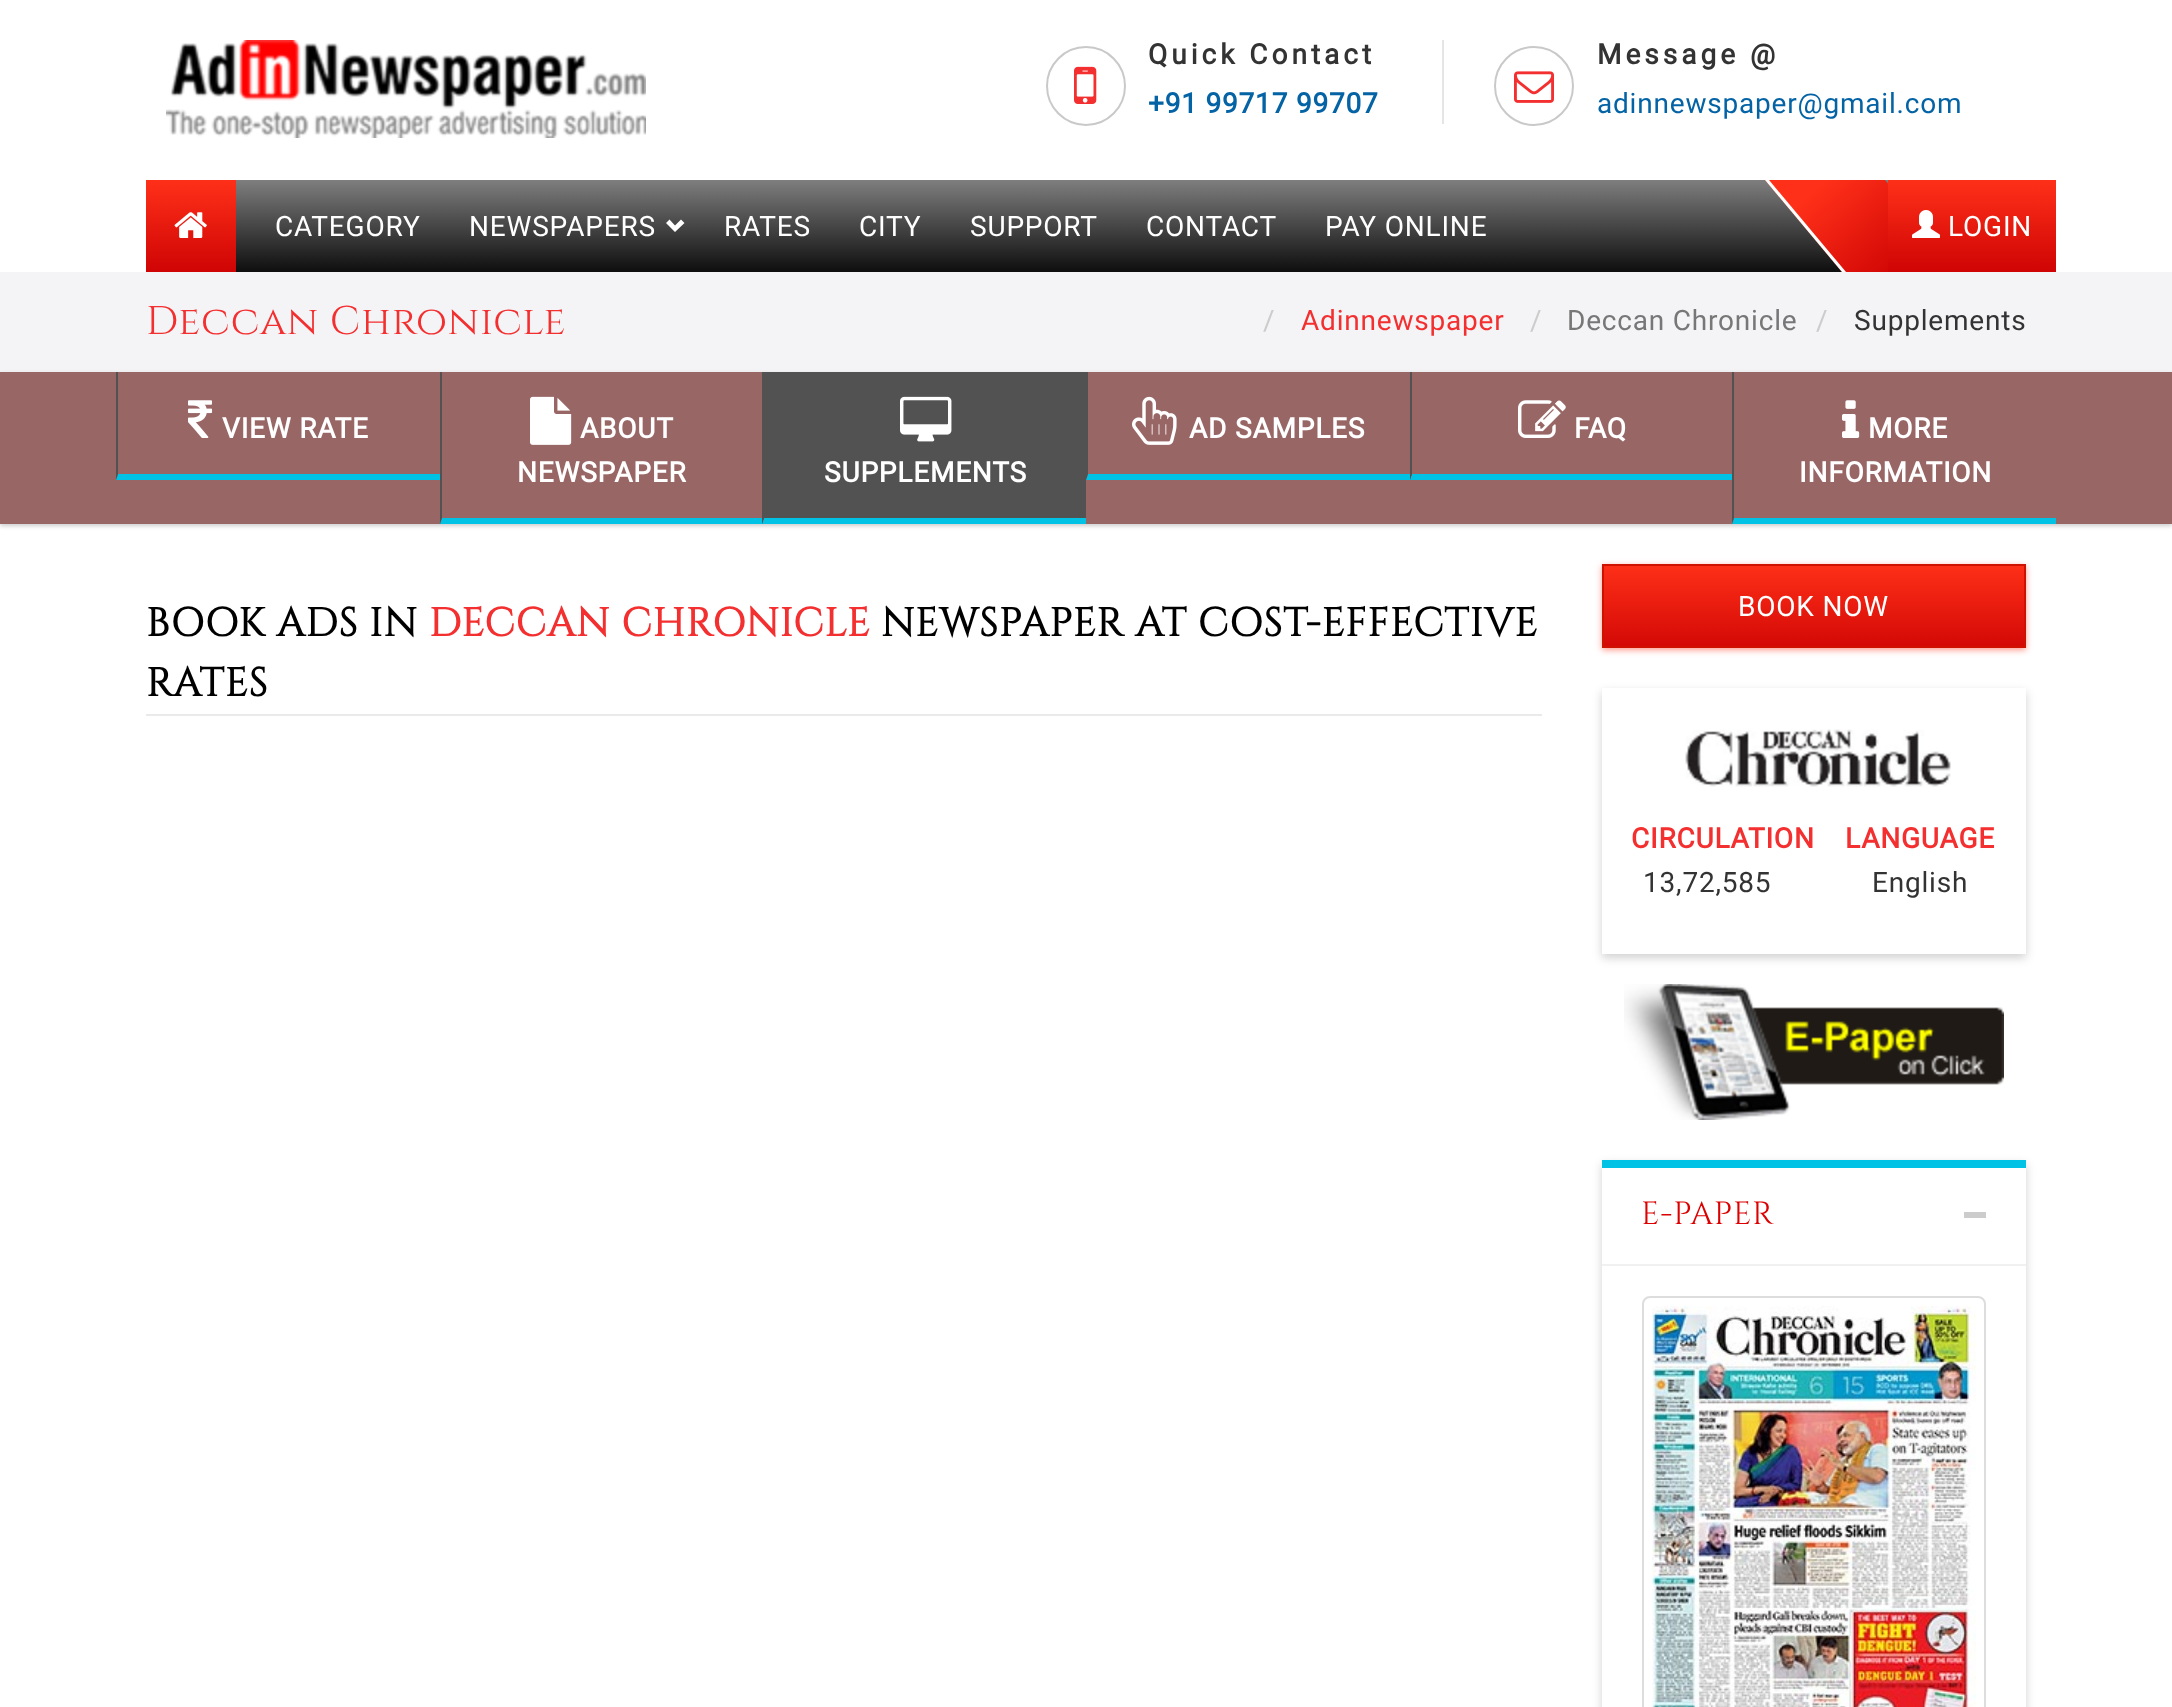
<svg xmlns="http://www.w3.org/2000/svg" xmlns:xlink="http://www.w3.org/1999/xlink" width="2172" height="1707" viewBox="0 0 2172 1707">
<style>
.cls-1{font:bold 28px Roboto;letter-spacing:4px;fill:#333333}
.cls-2{font:bold 28px Roboto;letter-spacing:0.8px;fill:#0463a5}
.cls-3{font:28px Roboto;letter-spacing:0.8px;fill:#0463a5}
.cls-4{font:28px Roboto;letter-spacing:0.8px;fill:#ffffff}
.cls-5{font:40px Cinzel;letter-spacing:0.8px;fill:#f32f2f}
.cls-6{font:28px Roboto;letter-spacing:0.8px;fill:#cccccc}
.cls-7{font:28px Roboto;letter-spacing:0.8px;fill:#f32f2f}
.cls-8{font:28px Roboto;letter-spacing:0.8px;fill:#777777}
.cls-9{font:28px Roboto;letter-spacing:0.8px;fill:#333333}
.cls-10{font:bold 28px Roboto;letter-spacing:0.8px;fill:#ffffff}
.cls-11{font:bold 40px Cinzel;letter-spacing:0.8px;fill:#000000}
.cls-12{font:bold 40px Cinzel;letter-spacing:0.8px;fill:#f32f2f}
.cls-13{font:bold 28px Roboto;letter-spacing:0.8px;fill:#f32f2f}
.cls-14{font:32px Cinzel;letter-spacing:0.8px;fill:#dc0000}
</style>
<defs>
<linearGradient id="g1" gradientUnits="userSpaceOnUse" x1="191" y1="180" x2="191" y2="272"><stop offset="0" stop-color="#ff3019"/><stop offset="1" stop-color="#cf0404"/></linearGradient>
<linearGradient id="g2" gradientUnits="userSpaceOnUse" x1="898" y1="180" x2="898" y2="272"><stop offset="0" stop-color="#7d7e7d"/><stop offset="1" stop-color="#0e0e0e"/></linearGradient>
<linearGradient id="g3" gradientUnits="userSpaceOnUse" x1="1800" y1="180" x2="1800" y2="272"><stop offset="0" stop-color="#7d7e7d"/><stop offset="1" stop-color="#0e0e0e"/></linearGradient>
<linearGradient id="g4" gradientUnits="userSpaceOnUse" x1="1827" y1="180" x2="1904" y2="272"><stop offset="0" stop-color="#ff3019"/><stop offset="1" stop-color="#cf0404"/></linearGradient>
<linearGradient id="g5" gradientUnits="userSpaceOnUse" x1="1972" y1="180" x2="1972" y2="272"><stop offset="0" stop-color="#ff3019"/><stop offset="1" stop-color="#cf0404"/></linearGradient>
<linearGradient id="g6" gradientUnits="userSpaceOnUse" x1="1604" y1="566" x2="1604" y2="646"><stop offset="0" stop-color="#fd2f18"/><stop offset="1" stop-color="#d40906"/></linearGradient>
<clipPath id="clip1"><path d="M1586 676H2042V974H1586ZM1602 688H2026V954H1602Z" clip-rule="evenodd"/></clipPath>
<clipPath id="clip2"><path d="M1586 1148H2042V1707H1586ZM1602 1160H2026V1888H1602Z" clip-rule="evenodd"/></clipPath>
</defs>
<rect width="100%" height="100%" fill="#ffffff"/>
<image xlink:href="image0.png" x="166" y="40" width="480" height="98"/>
<circle fill="none" stroke="#c9c9c9" stroke-width="2" cx="1086" cy="86" r="39"/>
<image xlink:href="image1.png" x="1074" y="66" width="23" height="38"/>
<rect fill="#e5e5e5" x="1442" y="40" width="2" height="84"/>
<circle fill="none" stroke="#c9c9c9" stroke-width="2" cx="1534" cy="86" r="39"/>
<image xlink:href="image2.png" x="1514" y="71" width="40" height="32"/>
<rect fill="url(#g1)" x="146" y="180" width="90" height="92"/>
<image xlink:href="image3.png" x="174" y="212" width="33" height="26"/>
<rect fill="url(#g2)" x="236" y="180" width="1338" height="92"/>
<path fill="#ffffff" d="M684.5 223L675 232L666 223L669.5 219.5L675 225.5L681 219.5Z"/>
<rect fill="url(#g3)" x="1574" y="180" width="314" height="92"/>
<path fill="url(#g4)" d="M1765 180H1885L1962 272H1842Z"/>
<rect fill="url(#g5)" x="1888" y="180" width="168" height="92"/>
<path fill="#ffffff" d="M1765 180H1769L1846 272H1842Z"/>
<image xlink:href="image4.png" x="1912" y="210" width="28" height="28"/>
<rect fill="#f4f4f7" x="0" y="272" width="2172" height="100"/>
<rect fill="#000000" fill-opacity="0.2" filter="blur(2px)" x="0" y="374" width="2172" height="152"/>
<rect fill="#996666" x="0" y="372" width="2172" height="152"/>
<path fill="#00c2e5" d="M440 480H116L118 474H440Z"/>
<path fill="#525252" d="M116 480V372H118V474Z"/>
<image xlink:href="image5.png" x="188" y="400" width="25" height="38"/>
<path fill="#00c2e5" d="M762 524H440L442 518H762Z"/>
<path fill="#525252" d="M440 524V372H442V518Z"/>
<image xlink:href="image6.png" x="530" y="396" width="42" height="49"/>
<path fill="#00c2e5" d="M1410 480H1086L1088 474H1410Z"/>
<path fill="#525252" d="M1086 480V372H1088V474Z"/>
<image xlink:href="image7.png" x="1132" y="396" width="45" height="49"/>
<path fill="#00c2e5" d="M1732 480H1410L1412 474H1732Z"/>
<path fill="#525252" d="M1410 480V372H1412V474Z"/>
<image xlink:href="image8.png" x="1518" y="400" width="48" height="38"/>
<path fill="#00c2e5" d="M2056 524H1732L1734 518H2056Z"/>
<path fill="#525252" d="M1732 524V372H1734V518Z"/>
<image xlink:href="image9.png" x="1842" y="400" width="18" height="38"/>
<rect fill="#525252" x="762" y="372" width="324" height="152"/>
<path fill="#00c2e5" d="M1086 524H762L764 518H1086Z"/>
<path fill="#525252" d="M762 524V372H764V518Z"/>
<image xlink:href="image10.png" x="900" y="396" width="52" height="46"/>
<rect fill="#eaeaea" x="146" y="714" width="1396" height="2"/>
<rect fill="#fd2f18" fill-opacity="0.5" filter="blur(3px)" x="1602" y="566" width="424" height="84"/>
<rect fill="url(#g6)" x="1604" y="566" width="420" height="80"/>
<rect fill="none" stroke="#cf1100" stroke-width="2" x="1603" y="565" width="422" height="82"/>
<g clip-path="url(#clip1)">
<rect fill="#000000" fill-opacity="0.18" filter="blur(5px)" x="1602" y="692" width="424" height="266"/>
</g>
<image xlink:href="image11.png" x="1685" y="729" width="266" height="58"/>
<image xlink:href="image12.png" x="1624" y="984" width="380" height="136"/>
<g clip-path="url(#clip2)">
<rect fill="#000000" fill-opacity="0.18" filter="blur(5px)" x="1602" y="1164" width="424" height="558"/>
</g>
<rect fill="#00c2e5" x="1602" y="1160" width="424" height="8"/>
<rect fill="#f1f1f1" x="1602" y="1264" width="424" height="2"/>
<rect fill="#cccccc" x="1964" y="1212" width="22" height="6"/>
<rect fill="none" stroke="#dddddd" stroke-width="2" x="1643" y="1297" width="342" height="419" rx="7"/>
<image xlink:href="image13.png" x="1652" y="1306" width="324" height="401"/>
<text class="cls-1" x="1148" y="64">Quick Contact</text>
<text class="cls-2" x="1148" y="113">+91 99717 99707</text>
<text class="cls-1" x="1597" y="64">Message @</text>
<text class="cls-3" x="1597" y="113">adinnewspaper@gmail.com</text>
<text class="cls-4" x="275" y="236">CATEGORY</text>
<text class="cls-4" x="469" y="236">NEWSPAPERS</text>
<text class="cls-4" x="724" y="236">RATES</text>
<text class="cls-4" x="859" y="236">CITY</text>
<text class="cls-4" x="970" y="236">SUPPORT</text>
<text class="cls-4" x="1146" y="236">CONTACT</text>
<text class="cls-4" x="1325" y="236">PAY ONLINE</text>
<text class="cls-4" x="1948" y="236">LOGIN</text>
<text class="cls-5" x="146" y="334">Deccan Chronicle</text>
<text class="cls-6" x="1263" y="330">/</text>
<text class="cls-7" x="1301" y="330">Adinnewspaper</text>
<text class="cls-6" x="1530" y="330">/</text>
<text class="cls-8" x="1567" y="330">Deccan Chronicle</text>
<text class="cls-6" x="1816" y="330">/</text>
<text class="cls-9" x="1854" y="330">Supplements</text>
<text class="cls-10" x="222" y="438">VIEW RATE</text>
<text class="cls-10" x="580" y="438">ABOUT</text>
<text class="cls-10" x="517" y="482">NEWSPAPER</text>
<text class="cls-10" x="1189" y="438">AD SAMPLES</text>
<text class="cls-10" x="1574" y="438">FAQ</text>
<text class="cls-10" x="1868" y="438">MORE</text>
<text class="cls-10" x="1799" y="482">INFORMATION</text>
<text class="cls-10" x="824" y="482">SUPPLEMENTS</text>
<text class="cls-11" x="146" y="636">BOOK ADS IN</text>
<text class="cls-12" x="429" y="636">DECCAN CHRONICLE</text>
<text class="cls-11" x="881" y="636">NEWSPAPER AT COST-EFFECTIVE</text>
<text class="cls-11" x="146" y="696">RATES</text>
<text class="cls-4" x="1738" y="616">BOOK NOW</text>
<text class="cls-13" x="1631" y="848">CIRCULATION</text>
<text class="cls-9" x="1643" y="892">13,72,585</text>
<text class="cls-13" x="1845" y="848">LANGUAGE</text>
<text class="cls-9" x="1872" y="892">English</text>
<text class="cls-14" x="1641" y="1224">E-PAPER</text>
</svg>
